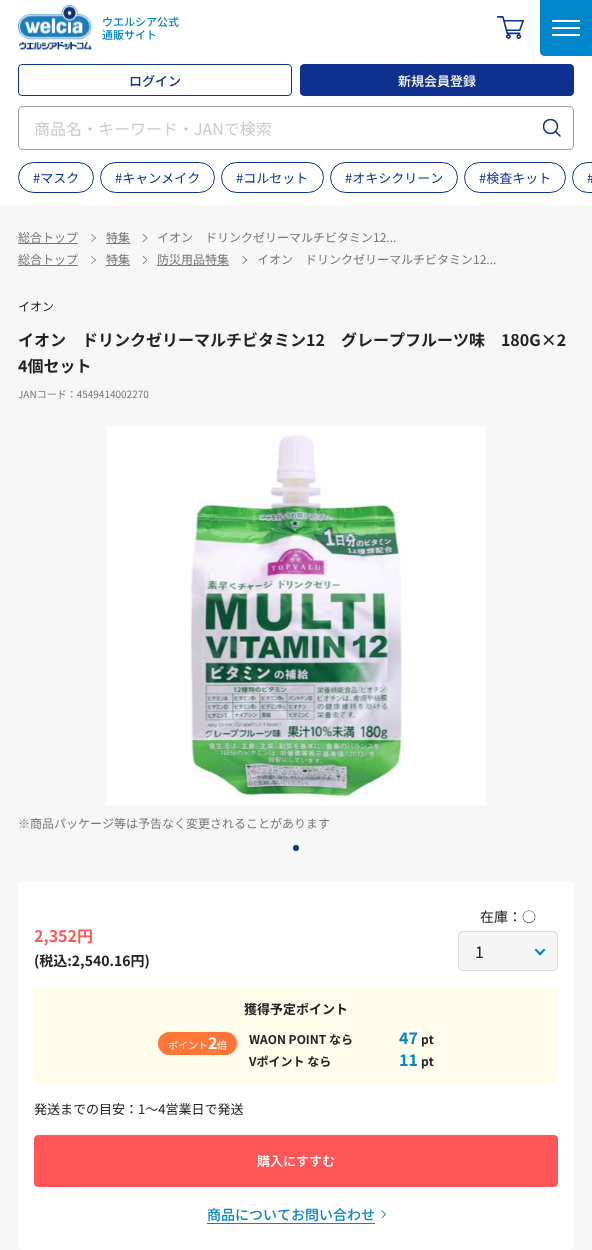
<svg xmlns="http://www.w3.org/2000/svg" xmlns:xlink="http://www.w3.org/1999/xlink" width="592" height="1250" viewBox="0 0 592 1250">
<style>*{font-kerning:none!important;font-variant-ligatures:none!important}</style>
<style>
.cls-1{font:500 11px Noto Sans JP;fill:#0086cd}
.cls-2{font:500 13px Noto Sans JP;fill:#0e318f}
.cls-3{font:500 13px Noto Sans JP;fill:#ffffff}
.cls-4{font:16px Noto Sans JP;fill:#cccccc}
.cls-5{font:13px Noto Sans JP;fill:#0e318f}
.cls-6{font:12px Noto Sans JP;fill:#777777}
.cls-7{font:12px Noto Sans JP;fill:#222222}
.cls-8{font:bold 16px Noto Sans JP;fill:#222222}
.cls-9{font:10px Noto Sans JP;fill:#777777}
.cls-10{font:bold 16px Noto Sans JP;fill:#ff5757}
.cls-11{font:bold 14px Noto Sans JP;fill:#222222}
.cls-12{font:14px Noto Sans JP;fill:#222222}
.cls-13{font:16px Noto Sans JP;fill:#222222}
.cls-14{font:bold 13px Noto Sans JP;fill:#222222}
.cls-15{font:10px Noto Sans JP;fill:#ffffff}
.cls-16{font:bold 16px Noto Sans JP;fill:#ffffff}
.cls-17{font:bold 12px Noto Sans JP;fill:#222222}
.cls-18{font:bold 16px Noto Sans JP;fill:#0086cd}
.cls-19{font:13px Noto Sans JP;fill:#222222}
.cls-20{font:500 14px Noto Sans JP;fill:#0086cd}
</style>
<defs>
<clipPath id="clip1"><rect x="543" y="119" width="18" height="18"/></clipPath>
</defs>
<rect width="100%" height="100%" fill="#f7f7f7"/>
<rect fill="#ffffff" x="0" y="0" width="592" height="205"/>
<image xlink:href="image0.png" x="18" y="5" width="74" height="45"/>
<path fill="#0086cd" d="M540 0H592V56H545C542 56 540 54 540 51Z"/>
<rect fill="#ffffff" x="552" y="27" width="28" height="2"/>
<rect fill="#ffffff" x="552" y="20" width="28" height="2"/>
<rect fill="#ffffff" x="552" y="34" width="28" height="2"/>
<image xlink:href="image1.png" x="497" y="16" width="27" height="23"/>
<rect fill="none" stroke="#0e318f" x="18.5" y="64.5" width="273" height="31" rx="3.5"/>
<rect fill="#0e318f" stroke="#0e318f" x="300.5" y="64.5" width="273" height="31" rx="3.5"/>
<rect fill="none" stroke="#999999" x="18.5" y="106.5" width="555" height="43" rx="4.5"/>
<g clip-path="url(#clip1)">
<circle fill="none" stroke="#0e318f" stroke-width="1.5" cx="550.5" cy="126.5" r="7"/>
</g>
<path fill="none" stroke="#0e318f" stroke-width="1.5" stroke-linecap="round" d="M555.5 131.5L560 136"/>
<rect fill="none" stroke="#0e318f" x="18.5" y="162.5" width="75" height="30" rx="15"/>
<rect fill="none" stroke="#0e318f" x="100.5" y="162.5" width="114" height="30" rx="15"/>
<rect fill="none" stroke="#0e318f" x="221.5" y="162.5" width="102" height="30" rx="15"/>
<rect fill="none" stroke="#0e318f" x="330.5" y="162.5" width="127" height="30" rx="15"/>
<rect fill="none" stroke="#0e318f" x="464.5" y="162.5" width="101" height="30" rx="15"/>
<rect fill="none" stroke="#0e318f" x="572.5" y="162.5" width="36" height="30" rx="15"/>
<rect fill="#777777" x="18" y="243" width="60" height="1"/>
<path fill="#777777" d="M91 234.5L91.5 234L96 238L95.5 238.5Z"/>
<path fill="#777777" d="M91 241.5L95.5 237.5L96 238L91.5 242Z"/>
<rect fill="#777777" x="106" y="243" width="24" height="1"/>
<path fill="#777777" d="M142.5 234.5L143.5 234L147.5 238L147 238.5Z"/>
<path fill="#777777" d="M142.5 241.5L147 237.5L147.5 238L143.5 242Z"/>
<rect fill="#777777" x="18" y="265" width="60" height="1"/>
<path fill="#777777" d="M91 256.5L91.5 256L96 260L95.5 260.5Z"/>
<path fill="#777777" d="M91 263.5L95.5 259.5L96 260L91.5 264Z"/>
<rect fill="#777777" x="106" y="265" width="24" height="1"/>
<path fill="#777777" d="M142.5 256.5L143.5 256L147.5 260L147 260.5Z"/>
<path fill="#777777" d="M142.5 263.5L147 259.5L147.5 260L143.5 264Z"/>
<rect fill="#777777" x="157" y="265" width="72" height="1"/>
<path fill="#777777" d="M242.5 256.5L243 256L247.5 260L246.5 260.5Z"/>
<path fill="#777777" d="M242.5 263.5L246.5 259.5L247.5 260L243 264Z"/>
<rect fill="#ffffff" x="107" y="426" width="379" height="379"/>
<image xlink:href="image2.png" x="190" y="435" width="217" height="367"/>
<circle fill="#0e318f" cx="296" cy="848" r="3"/>
<rect fill="#ffffff" x="18" y="881" width="556" height="369" rx="5"/>
<rect fill="#f5f5f5" stroke="#dddddd" x="458.5" y="931.5" width="99" height="39" rx="4.5"/>
<path fill="#0086cd" d="M545.5 950L540 955.5L538.5 954L544 948.5Z"/>
<path fill="#0086cd" d="M541.5 954L540 955.5L534.5 950L536 948.5Z"/>
<rect fill="#fffcec" x="34" y="987" width="524" height="96" rx="5"/>
<rect fill="#ff7638" x="158" y="1032" width="79" height="23" rx="11.5"/>
<rect fill="#ff5757" stroke="#ff5757" x="34.5" y="1135.5" width="523" height="51" rx="3.5"/>
<rect fill="#0086cd" x="207" y="1223" width="168" height="1"/>
<path fill="#0086cd" d="M381.5 1211L382 1210L386 1214.5L385.5 1215Z"/>
<path fill="#0086cd" d="M381.5 1218L385.5 1213.5L386 1214.5L382 1218.5Z"/>
<text class="cls-1"><tspan x="102" y="26">ウエルシア公式</tspan><tspan x="102" y="39">通販サイト</tspan></text>
<text class="cls-2" x="129" y="86">ログイン</text>
<text class="cls-3" x="398" y="86">新規会員登録</text>
<text class="cls-4" x="34" y="135">商品名・キーワード・JANで検索</text>
<text class="cls-5" x="33" y="183">#マスク</text>
<text class="cls-5" x="115" y="183">#キャンメイク</text>
<text class="cls-5" x="236" y="183">#コルセット</text>
<text class="cls-5" x="345" y="183">#オキシクリーン</text>
<text class="cls-5" x="479" y="183">#検査キット</text>
<text class="cls-5" x="587" y="183">#</text>
<text class="cls-6" x="18" y="242">総合トップ</text>
<text class="cls-6" x="106" y="242">特集</text>
<text class="cls-6" x="157" y="242">イオン　ドリンクゼリーマルチビタミン12...</text>
<text class="cls-6" x="18" y="264">総合トップ</text>
<text class="cls-6" x="106" y="264">特集</text>
<text class="cls-6" x="157" y="264">防災用品特集</text>
<text class="cls-6" x="257" y="264">イオン　ドリンクゼリーマルチビタミン12...</text>
<text class="cls-7" x="18" y="311">イオン</text>
<text class="cls-8"><tspan x="18" y="346">イオン　ドリンクゼリーマルチビタミン12　グレープフルーツ味　180G×2</tspan><tspan x="18" y="372">4個セット</tspan></text>
<text class="cls-9" x="18" y="398">JANコード：4549414002270</text>
<text class="cls-6" x="18" y="828">※商品パッケージ等は予告なく変更されることがあります</text>
<text class="cls-10" x="34" y="942">2,352円</text>
<text class="cls-11" x="34" y="966">(税込:2,540.16円)</text>
<text class="cls-12" x="480" y="922">在庫：○</text>
<text class="cls-13" x="475" y="958">1</text>
<text class="cls-14" x="244" y="1014">獲得予定ポイント</text>
<text class="cls-15" x="168" y="1049">ポイント</text>
<text class="cls-16" x="208" y="1049">2</text>
<text class="cls-15" x="217" y="1049">倍</text>
<text class="cls-17" x="249" y="1044">WAON POINT なら</text>
<text class="cls-18" x="399" y="1044">47</text>
<text class="cls-17" x="421" y="1044">pt</text>
<text class="cls-17" x="249" y="1066">Vポイント なら</text>
<text class="cls-18" x="399" y="1066">11</text>
<text class="cls-17" x="421" y="1066">pt</text>
<text class="cls-19" x="34" y="1114">発送までの目安：1～4営業日で発送</text>
<text class="cls-3" x="257" y="1166">購入にすすむ</text>
<text class="cls-20" x="207" y="1220">商品についてお問い合わせ</text>
</svg>
